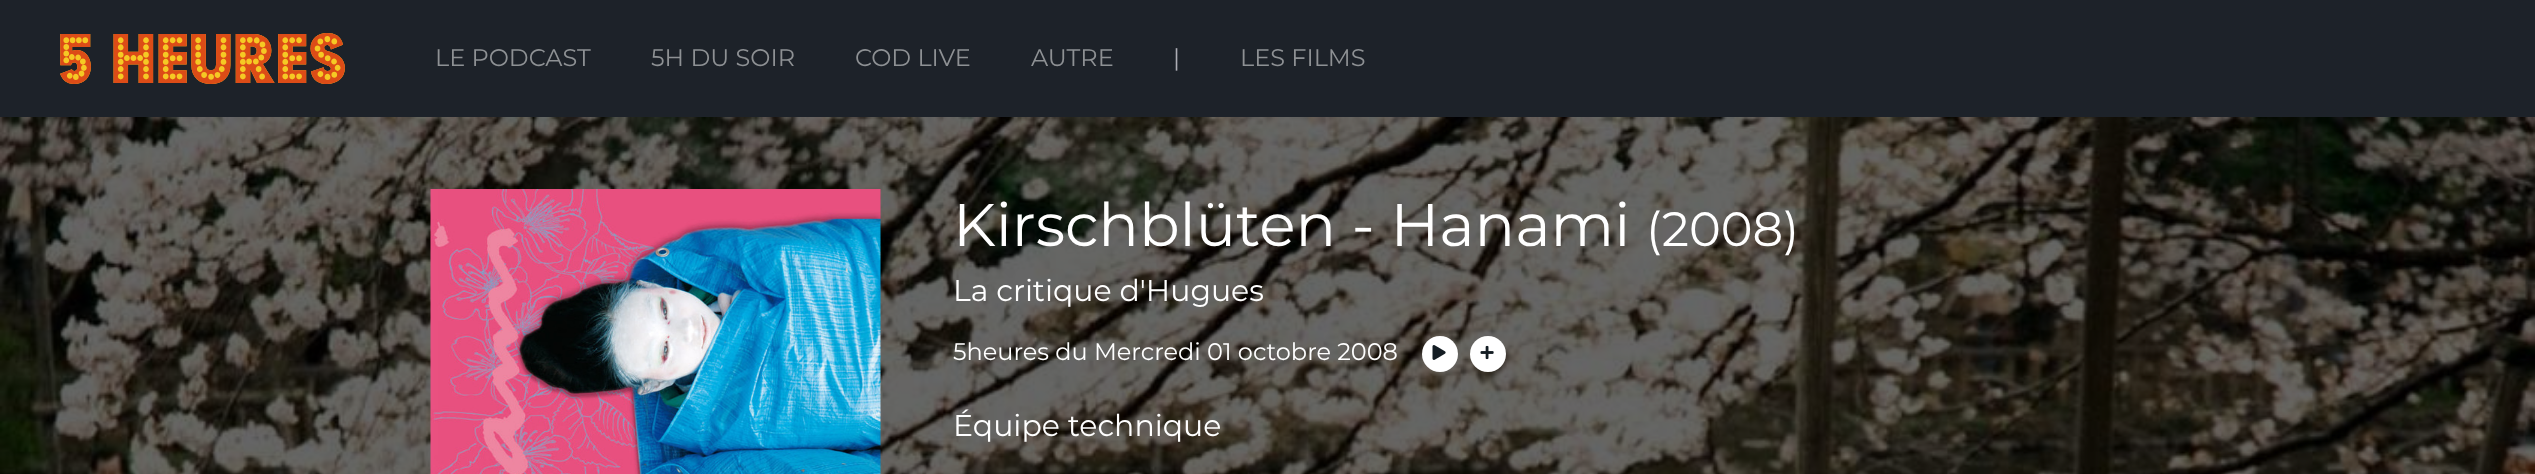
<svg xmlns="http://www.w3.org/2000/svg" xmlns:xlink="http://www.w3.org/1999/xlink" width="2535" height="474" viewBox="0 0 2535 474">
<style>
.cls-1{font:100 24px Montserrat;fill:#8e9194}
.cls-2{font:100 24px Montserrat;fill:#acadb4}
.cls-3{font:100 60px Montserrat;fill:#ffffff}
.cls-4{font:100 48px Montserrat;fill:#ffffff}
.cls-5{font:100 30px Montserrat;fill:#ffffff}
.cls-6{font:100 24px Montserrat;fill:#ffffff}
</style>
<rect width="100%" height="100%" fill="#1d2229"/>
<image xlink:href="image0.png" x="60" y="33" width="285" height="51"/>
<image xlink:href="image1.png" x="0" y="117" width="2535" height="357"/>
<image xlink:href="image2.png" x="430" y="189" width="451" height="285"/>
<circle fill="#ffffff" cx="1440" cy="354" r="18"/>
<image xlink:href="image3.png" x="1432" y="345" width="14" height="15"/>
<circle fill="#ffffff" cx="1488" cy="354" r="18"/>
<image xlink:href="image4.png" x="1480" y="345" width="14" height="15"/>
<text class="cls-1" x="435" y="66">LE PODCAST</text>
<text class="cls-1" x="651" y="66">5H DU SOIR</text>
<text class="cls-1" x="855" y="66">COD LIVE</text>
<text class="cls-1" x="1031" y="66">AUTRE</text>
<text class="cls-2" x="1173" y="66">|</text>
<text class="cls-1" x="1240" y="66">LES FILMS</text>
<text class="cls-3" x="953" y="246">Kirschblüten - Hanami</text>
<text class="cls-4" x="1646" y="246">(2008)</text>
<text class="cls-5" x="953" y="301">La critique d'Hugues</text>
<text class="cls-6" x="953" y="360">5heures du Mercredi 01 octobre 2008</text>
<text class="cls-5" x="953" y="436">Équipe technique</text>
</svg>
